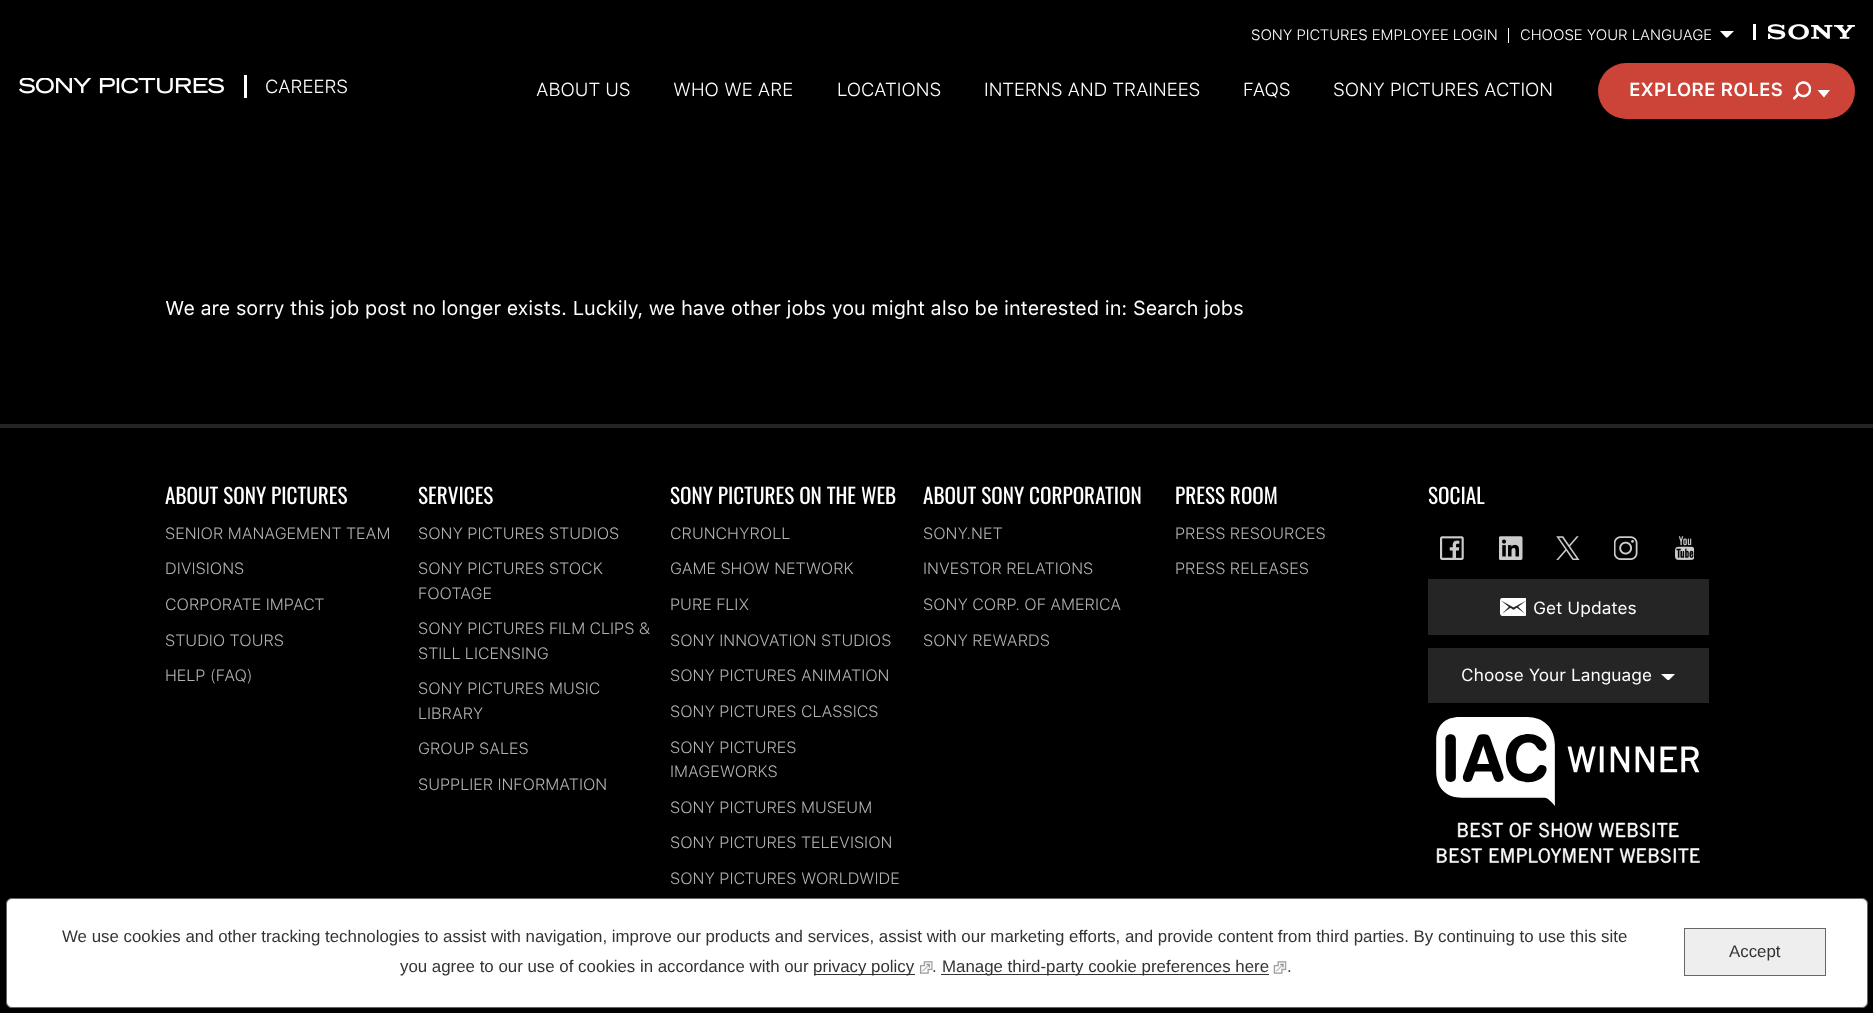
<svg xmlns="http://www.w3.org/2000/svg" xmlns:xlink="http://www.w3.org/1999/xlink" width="1873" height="1013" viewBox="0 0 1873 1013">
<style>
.cls-1{font:300 18.75px SF Pro Text;fill:#ffffff}
.cls-2{font:300 15px SF Pro Text;fill:#ffffff}
.cls-3{font:600 18.75px SF Pro Text;fill:#ffffff}
.cls-4{font:20px SF Pro Text;fill:#ffffff}
.cls-5{font:21.25px Oswald;fill:#ffffff}
.cls-6{font:300 16.25px SF Pro Text;fill:#b1b1b1}
.cls-7{font:17.5px SF Pro Text;fill:#ffffff}
.cls-8{font:16.88px Liberation Sans;fill:#333333}
</style>
<rect width="100%" height="100%" fill="#000000"/>
<image xlink:href="image0.png" x="19" y="78" width="205" height="16"/>
<rect fill="#ffffff" x="244" y="75" width="3" height="23"/>
<rect fill="#ffffff" x="1508" y="28" width="1" height="15"/>
<path fill="#ffffff" d="M1720 31H1734L1727.5 37.5H1726Z"/>
<rect fill="#ffffff" x="1753" y="24" width="3" height="16"/>
<image xlink:href="image1.png" x="1768" y="24" width="87" height="16"/>
<rect fill="#cb4437" x="1598" y="63" width="257" height="56" rx="28"/>
<image xlink:href="image2.png" x="1793" y="81" width="18" height="19"/>
<path fill="#ffffff" d="M1817.5 90H1830L1824 97.5Z"/>
<rect fill="#252525" x="0" y="424" width="1873" height="4"/>
<image xlink:href="image3.png" x="1440" y="536" width="24" height="24"/>
<image xlink:href="image4.png" x="1499" y="536" width="24" height="24"/>
<image xlink:href="image5.png" x="1556" y="536" width="24" height="24"/>
<image xlink:href="image6.png" x="1614" y="536" width="24" height="24"/>
<image xlink:href="image7.png" x="1675" y="536" width="19" height="24"/>
<rect fill="#252525" x="1428" y="579" width="281" height="56"/>
<image xlink:href="image8.png" x="1500" y="598" width="26" height="18"/>
<rect fill="#252525" x="1428" y="648" width="281" height="55"/>
<path fill="#ffffff" d="M1661 674H1675L1669 680H1667.5Z"/>
<image xlink:href="image9.png" x="1436" y="717" width="264" height="147"/>
<rect fill="none" stroke="#666666" x="6.5" y="898.5" width="1861" height="109" rx="5.5"/>
<rect fill="#ffffff" stroke="#666666" x="6.5" y="898.5" width="1861" height="109" rx="5.5"/>
<image xlink:href="image10.png" x="920" y="961" width="13" height="13"/>
<rect fill="#333333" x="814" y="974" width="101" height="1"/>
<image xlink:href="image11.png" x="1273" y="961" width="14" height="13"/>
<rect fill="#333333" x="941" y="974" width="328" height="1"/>
<rect fill="#eeeeee" stroke="#666666" x="1684.5" y="928.5" width="141" height="47"/>
<text class="cls-1" x="265" y="93">CAREERS</text>
<text class="cls-2" x="1251" y="40">SONY PICTURES EMPLOYEE LOGIN</text>
<text class="cls-2" x="1520" y="40">CHOOSE YOUR LANGUAGE</text>
<text class="cls-1" x="536" y="96">ABOUT US</text>
<text class="cls-1" x="673" y="96">WHO WE ARE</text>
<text class="cls-1" x="837" y="96">LOCATIONS</text>
<text class="cls-1" x="984" y="96">INTERNS AND TRAINEES</text>
<text class="cls-1" x="1243" y="96">FAQS</text>
<text class="cls-1" x="1333" y="96">SONY PICTURES ACTION</text>
<text class="cls-3" x="1629" y="96">EXPLORE ROLES</text>
<text class="cls-4" x="165" y="315">We are sorry this job post no longer exists. Luckily, we have other jobs you might also be interested in: Search jobs</text>
<text class="cls-5" x="165" y="504">ABOUT SONY PICTURES</text>
<text class="cls-6" x="165" y="539">SENIOR MANAGEMENT TEAM</text>
<text class="cls-6" x="165" y="574">DIVISIONS</text>
<text class="cls-6" x="165" y="610">CORPORATE IMPACT</text>
<text class="cls-6" x="165" y="646">STUDIO TOURS</text>
<text class="cls-6" x="165" y="681">HELP (FAQ)</text>
<text class="cls-5" x="418" y="504">SERVICES</text>
<text class="cls-6" x="418" y="539">SONY PICTURES STUDIOS</text>
<text class="cls-6"><tspan x="418" y="574">SONY PICTURES STOCK</tspan><tspan x="418" y="599">FOOTAGE</tspan></text>
<text class="cls-6"><tspan x="418" y="634">SONY PICTURES FILM CLIPS &amp;</tspan><tspan x="418" y="659">STILL LICENSING</tspan></text>
<text class="cls-6"><tspan x="418" y="694">SONY PICTURES MUSIC</tspan><tspan x="418" y="719">LIBRARY</tspan></text>
<text class="cls-6" x="418" y="754">GROUP SALES</text>
<text class="cls-6" x="418" y="790">SUPPLIER INFORMATION</text>
<text class="cls-5" x="670" y="504">SONY PICTURES ON THE WEB</text>
<text class="cls-6" x="670" y="539">CRUNCHYROLL</text>
<text class="cls-6" x="670" y="574">GAME SHOW NETWORK</text>
<text class="cls-6" x="670" y="610">PURE FLIX</text>
<text class="cls-6" x="670" y="646">SONY INNOVATION STUDIOS</text>
<text class="cls-6" x="670" y="681">SONY PICTURES ANIMATION</text>
<text class="cls-6" x="670" y="717">SONY PICTURES CLASSICS</text>
<text class="cls-6"><tspan x="670" y="753">SONY PICTURES</tspan><tspan x="670" y="777">IMAGEWORKS</tspan></text>
<text class="cls-6" x="670" y="813">SONY PICTURES MUSEUM</text>
<text class="cls-6" x="670" y="848">SONY PICTURES TELEVISION</text>
<text class="cls-6" x="670" y="884">SONY PICTURES WORLDWIDE</text>
<text class="cls-5" x="923" y="504">ABOUT SONY CORPORATION</text>
<text class="cls-6" x="923" y="539">SONY.NET</text>
<text class="cls-6" x="923" y="574">INVESTOR RELATIONS</text>
<text class="cls-6" x="923" y="610">SONY CORP. OF AMERICA</text>
<text class="cls-6" x="923" y="646">SONY REWARDS</text>
<text class="cls-5" x="1175" y="504">PRESS ROOM</text>
<text class="cls-6" x="1175" y="539">PRESS RESOURCES</text>
<text class="cls-6" x="1175" y="574">PRESS RELEASES</text>
<text class="cls-5" x="1428" y="504">SOCIAL</text>
<text class="cls-7" x="1533" y="614">Get Updates</text>
<text class="cls-7" x="1461" y="681">Choose Your Language</text>
<text class="cls-8" x="62" y="942">We use cookies and other tracking technologies to assist with navigation, improve our products and services, assist with our marketing efforts, and provide content from third parties. By continuing to use this site</text>
<text class="cls-8" x="400" y="972">you agree to our use of cookies in accordance with our</text>
<text class="cls-8" x="813" y="972">privacy policy</text>
<text class="cls-8" x="932" y="972">.</text>
<text class="cls-8" x="942" y="972">Manage third-party cookie preferences here</text>
<text class="cls-8" x="1287" y="972">.</text>
<text class="cls-8" x="1729" y="957">Accept</text>
</svg>
